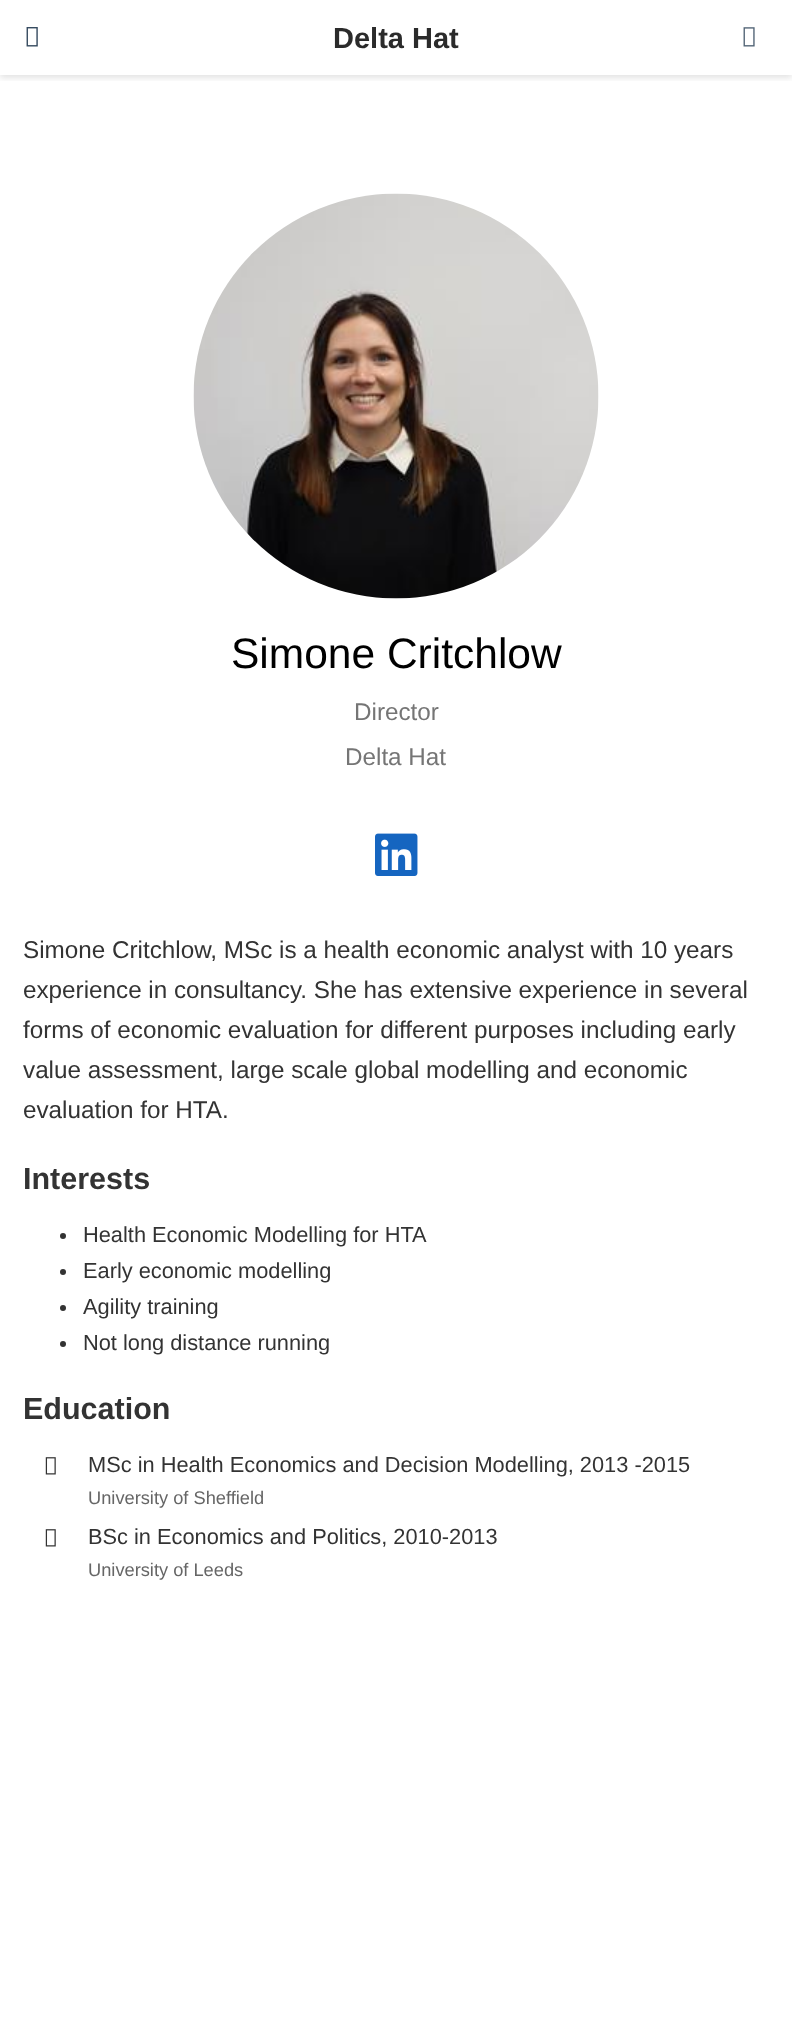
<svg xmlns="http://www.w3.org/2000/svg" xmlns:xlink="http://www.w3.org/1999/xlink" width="792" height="2033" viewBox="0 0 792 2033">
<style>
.cls-1{font:bold 29px Liberation Sans;fill:#2b2b2b}
.cls-2{font:42.5px Liberation Sans;fill:#000000}
.cls-3{font:24.25px Liberation Sans;fill:#757575}
.cls-4{font:24.25px Liberation Sans;fill:#333333}
.cls-5{font:bold 30.5px Liberation Sans;fill:#333333}
.cls-6{font:21.8px Liberation Sans;fill:#333333}
.cls-7{font:18.25px Liberation Sans;fill:#666666}
</style>
<defs>
<clipPath id="clip1"><rect x="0" y="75" width="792" height="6"/></clipPath>
</defs>
<rect width="100%" height="100%" fill="#ffffff"/>
<g clip-path="url(#clip1)">
<rect fill="#000000" fill-opacity="0.11" filter="blur(3px)" x="0" y="3" width="792" height="75"/>
</g>
<image xlink:href="image0.png" x="26" y="27" width="12" height="20"/>
<image xlink:href="image1.png" x="743" y="27" width="12" height="20"/>
<image xlink:href="image2.png" x="193" y="193" width="406" height="406"/>
<image xlink:href="image3.png" x="375" y="833" width="43" height="43"/>
<circle fill="#333333" cx="63" cy="1236" r="3"/>
<circle fill="#333333" cx="63" cy="1272" r="3"/>
<circle fill="#333333" cx="63" cy="1308" r="3"/>
<circle fill="#333333" cx="63" cy="1344" r="3"/>
<image xlink:href="image4.png" x="45" y="1457" width="11" height="18"/>
<image xlink:href="image4.png" x="45" y="1529" width="11" height="18"/>
<text class="cls-1" x="333" y="48">Delta Hat</text>
<text class="cls-2" x="231" y="668">Simone Critchlow</text>
<text class="cls-3" x="354" y="720">Director</text>
<text class="cls-3" x="345" y="765">Delta Hat</text>
<text class="cls-4"><tspan x="23" y="958">Simone Critchlow, MSc is a health economic analyst with 10 years</tspan><tspan x="23" y="998">experience in consultancy. She has extensive experience in several</tspan><tspan x="23" y="1038">forms of economic evaluation for different purposes including early</tspan><tspan x="23" y="1078">value assessment, large scale global modelling and economic</tspan><tspan x="23" y="1118">evaluation for HTA.</tspan></text>
<text class="cls-5" x="23" y="1189">Interests</text>
<text class="cls-6"><tspan x="83" y="1242">Health Economic Modelling for HTA</tspan><tspan x="83" y="1278">Early economic modelling</tspan><tspan x="83" y="1314">Agility training</tspan><tspan x="83" y="1350">Not long distance running</tspan></text>
<text class="cls-5" x="23" y="1419">Education</text>
<text class="cls-6" x="88" y="1472">MSc in Health Economics and Decision Modelling, 2013 -2015</text>
<text class="cls-7" x="88" y="1504">University of Sheffield</text>
<text class="cls-6" x="88" y="1544">BSc in Economics and Politics, 2010-2013</text>
<text class="cls-7" x="88" y="1576">University of Leeds</text>
</svg>
